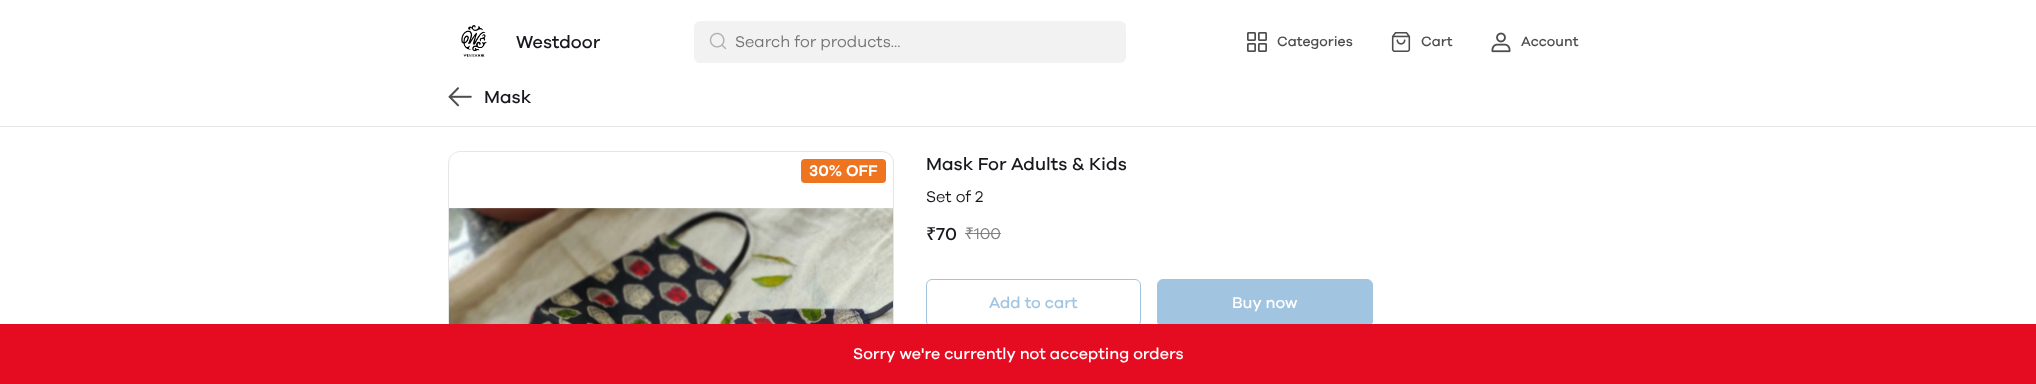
<svg xmlns="http://www.w3.org/2000/svg" xmlns:xlink="http://www.w3.org/1999/xlink" width="2036" height="384" viewBox="0 0 2036 384">
<style>
.cls-1{font:500 18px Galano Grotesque;fill:#1a181e}
.cls-2{font:16px Galano Grotesque;fill:#757575}
.cls-3{font:500 14px Galano Grotesque;fill:#4d4d4d}
.cls-4{font:600 16px Galano Grotesque;fill:#ffffff}
.cls-5{font:16px Galano Grotesque;fill:#1a181e}
.cls-6{font:500 18px Noto Sans;fill:#1a181e}
.cls-7{font:16px Noto Sans;fill:#808080}
.cls-8{font:16px Galano Grotesque;fill:#808080}
.cls-9{font:500 16px Galano Grotesque;fill:#a1c5e1}
.cls-10{font:500 16px Galano Grotesque;fill:#ffffff}
</style>
<rect width="100%" height="100%" fill="#ffffff"/>
<rect fill="#e6e6e6" x="0" y="126" width="2036" height="1"/>
<image xlink:href="image0.png" x="461" y="25" width="26" height="32"/>
<rect fill="#f2f2f2" x="694" y="21" width="432" height="42" rx="6"/>
<image xlink:href="image1.png" x="709" y="32" width="18" height="18"/>
<image xlink:href="image2.png" x="1247" y="32" width="20" height="20"/>
<image xlink:href="image3.png" x="1391" y="32" width="20" height="20"/>
<image xlink:href="image4.png" x="1491" y="32" width="20" height="21"/>
<image xlink:href="image5.png" x="448" y="87" width="24" height="20"/>
<rect fill="none" stroke="#e6e6e6" x="448.5" y="151.5" width="445" height="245" rx="11.5"/>
<image xlink:href="image6.png" x="449" y="208" width="444" height="116"/>
<rect fill="#ee741f" x="801" y="159" width="85" height="24" rx="4"/>
<rect fill="#808080" x="965" y="233" width="36" height="1"/>
<rect fill="none" stroke="#a1c5e1" x="926.5" y="279.5" width="214" height="47" rx="5.5"/>
<rect fill="#a1c5e1" stroke="#a1c5e1" x="1157.5" y="279.5" width="215" height="47" rx="5.5"/>
<rect fill="#e50b20" x="0" y="324" width="2036" height="60"/>
<text class="cls-1" x="516" y="48">Westdoor</text>
<text class="cls-2" x="735" y="47">Search for products...</text>
<text class="cls-3" x="1277" y="46">Categories</text>
<text class="cls-3" x="1421" y="46">Cart</text>
<text class="cls-3" x="1521" y="46">Account</text>
<text class="cls-1" x="484" y="103">Mask</text>
<text class="cls-4" x="809" y="176">30% OFF</text>
<text class="cls-1" x="926" y="170">Mask For Adults &amp; Kids</text>
<text class="cls-5" x="926" y="202">Set of 2</text>
<text class="cls-6" x="926" y="240">₹</text>
<text class="cls-1" x="936" y="240">70</text>
<text class="cls-7" x="965" y="239">₹</text>
<text class="cls-8" x="974" y="239">100</text>
<text class="cls-9" x="989" y="308">Add to cart</text>
<text class="cls-10" x="1232" y="308">Buy now</text>
<text class="cls-10" x="853" y="359">Sorry we're currently not accepting orders</text>
</svg>
